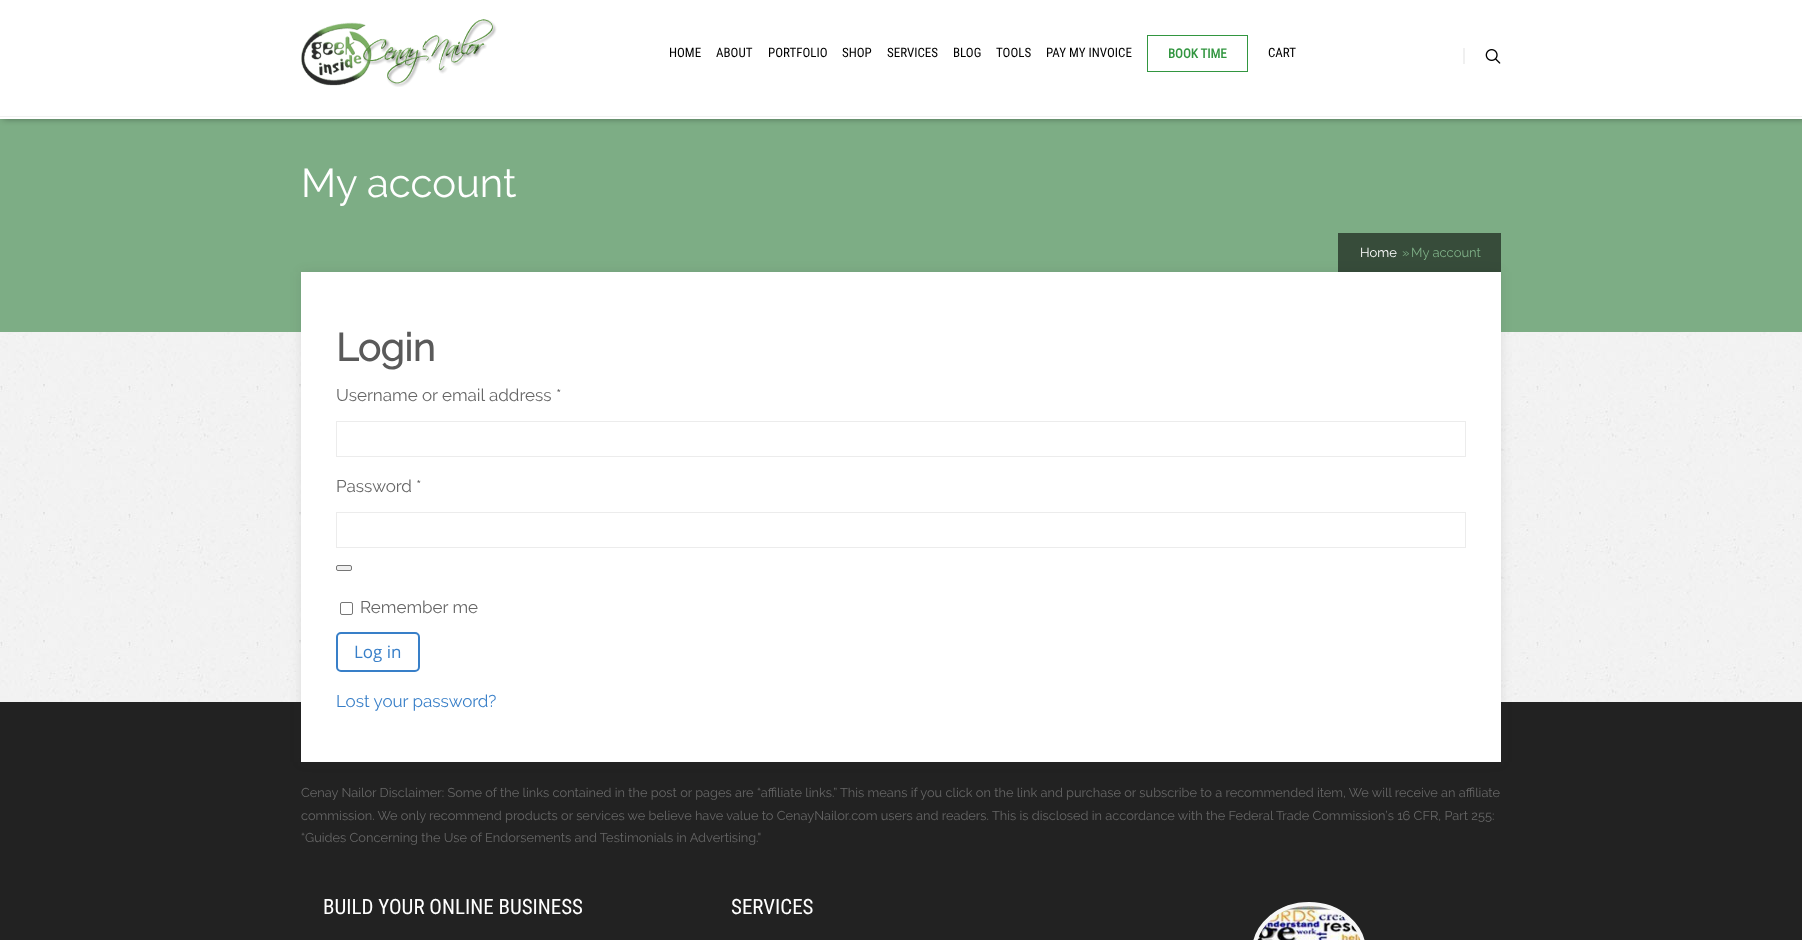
<svg xmlns="http://www.w3.org/2000/svg" xmlns:xlink="http://www.w3.org/1999/xlink" width="1802" height="940" viewBox="0 0 1802 940">
<style>
.cls-1{font:13px Roboto Condensed;fill:#000000}
.cls-2{font:bold 13px Roboto Condensed;fill:#329640}
.cls-3{font:40px Raleway;fill:#ffffff}
.cls-4{font:13px Raleway;fill:#ffffff}
.cls-5{font:13px Raleway;fill:#7dad85}
.cls-6{font:bold 38.5px Raleway;fill:#5a5a5a}
.cls-7{font:17px Raleway;fill:#666666}
.cls-8{font:17px Raleway;fill:#5a5a5a}
.cls-9{font:17px Open Sans;fill:#387fc8}
.cls-10{font:17px Raleway;fill:#387fc8}
.cls-11{font:12.8px Raleway;fill:#666666}
.cls-12{font:21px Roboto Condensed;fill:#ffffff}
</style>
<rect width="100%" height="100%" fill="#ffffff"/>
<image xlink:href="image0.png" x="0" y="332" width="1802" height="370"/>
<rect fill="#7dad85" x="0" y="119" width="1802" height="213"/>
<rect fill="#000000" fill-opacity="0.37" filter="blur(3px)" x="3" y="0" width="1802" height="119"/>
<rect fill="#ffffff" x="0" y="0" width="1802" height="119"/>
<rect fill="#f1f1f1" x="0" y="116" width="1802" height="1"/>
<image xlink:href="image1.png" x="301" y="19" width="196" height="68"/>
<rect fill="none" stroke="#329640" x="1147.5" y="35.5" width="100" height="36"/>
<rect fill="#f0f0f0" x="1463" y="48" width="2" height="16"/>
<image xlink:href="image2.png" x="1485" y="49" width="16" height="15"/>
<rect fill="#222222" x="0" y="702" width="1802" height="238"/>
<rect fill="#323232" fill-opacity="0.11" filter="blur(5.5px)" x="301" y="272" width="1200" height="490"/>
<rect fill="#ffffff" x="301" y="272" width="1200" height="490"/>
<rect fill="#000000" fill-opacity="0.56" x="1338" y="233" width="163" height="39"/>
<rect fill="none" stroke="#ececec" x="336.5" y="421.5" width="1129" height="35"/>
<rect fill="none" stroke="#ececec" x="336.5" y="512.5" width="1129" height="35"/>
<rect fill="#efefef" stroke="#767676" x="336.5" y="565.5" width="15" height="5" rx="1.5"/>
<rect fill="none" stroke="#767676" x="340.5" y="602.5" width="12" height="12" rx="1.5"/>
<rect fill="none" stroke="#387fc8" stroke-width="2" x="337" y="633" width="82" height="38" rx="4"/>
<image xlink:href="image3.png" x="1255" y="906" width="108" height="34"/>
<rect fill="none" stroke="#f7f7f7" stroke-width="4" x="1254" y="904" width="110" height="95" rx="55"/>
<text class="cls-1" x="669" y="57">HOME</text>
<text class="cls-1" x="716" y="57">ABOUT</text>
<text class="cls-1" x="768" y="57">PORTFOLIO</text>
<text class="cls-1" x="842" y="57">SHOP</text>
<text class="cls-1" x="887" y="57">SERVICES</text>
<text class="cls-1" x="953" y="57">BLOG</text>
<text class="cls-1" x="996" y="57">TOOLS</text>
<text class="cls-1" x="1046" y="57">PAY MY INVOICE</text>
<text class="cls-2" x="1168" y="58">BOOK TIME</text>
<text class="cls-1" x="1268" y="57">CART</text>
<text class="cls-3" x="301" y="197">My account</text>
<text class="cls-4" x="1360" y="257">Home</text>
<text class="cls-5" x="1402" y="257">»</text>
<text class="cls-5" x="1411" y="257">My account</text>
<text class="cls-6" x="336" y="361">Login</text>
<text class="cls-7" x="336" y="401">Username or email address</text>
<text class="cls-8" x="556" y="401">*</text>
<text class="cls-7" x="336" y="492">Password</text>
<text class="cls-8" x="416" y="492">*</text>
<text class="cls-7" x="360" y="613">Remember me</text>
<text class="cls-9" x="354" y="658">Log in</text>
<text class="cls-10" x="336" y="707">Lost your password?</text>
<text class="cls-11"><tspan x="301" y="797">Cenay Nailor Disclaimer: Some of the links contained in the post or pages are “affiliate links.” This means if you click on the link and purchase or subscribe to a recommended item, We will receive an affiliate</tspan><tspan x="301" y="820">commission. We only recommend products or services we believe have value to CenayNailor.com users and readers. This is disclosed in accordance with the Federal Trade Commission’s 16 CFR, Part 255:</tspan><tspan x="301" y="842">“Guides Concerning the Use of Endorsements and Testimonials in Advertising."</tspan></text>
<text class="cls-12" x="323" y="914">BUILD YOUR ONLINE BUSINESS</text>
<text class="cls-12" x="731" y="914">SERVICES</text>
</svg>
